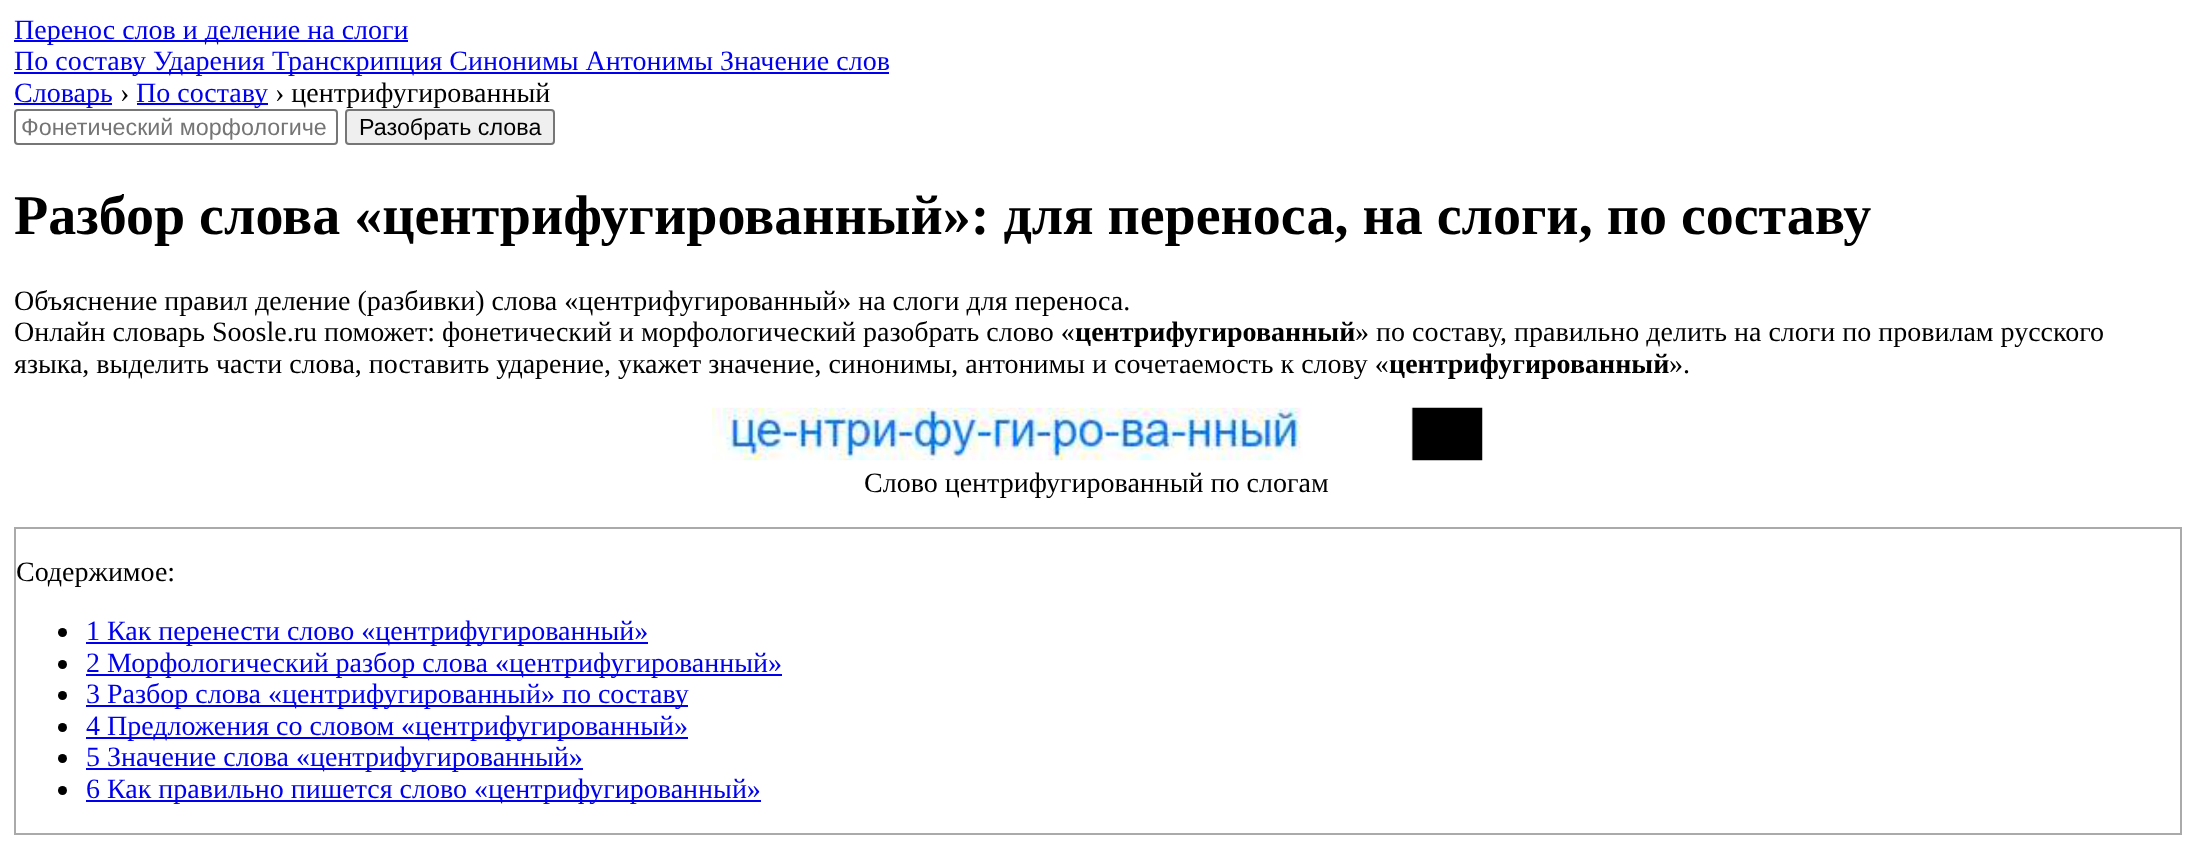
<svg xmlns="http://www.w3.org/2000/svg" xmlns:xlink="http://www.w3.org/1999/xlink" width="2192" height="868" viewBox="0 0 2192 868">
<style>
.cls-1{font:28px Liberation Serif;fill:#0000ee}
.cls-2{font:28px Liberation Serif;fill:#000000}
.cls-3{font:23.3px Liberation Sans;fill:#757575}
.cls-4{font:23.3px Liberation Sans;fill:#000000}
.cls-5{font:bold 56px Liberation Serif;fill:#000000}
.cls-6{font:bold 28px Liberation Serif;fill:#000000}
</style>
<rect width="100%" height="100%" fill="#ffffff"/>
<rect fill="#0000ee" x="14" y="40" width="394" height="2"/>
<rect fill="#0000ee" x="14" y="72" width="131" height="2"/>
<rect fill="#0000ee" x="145" y="72" width="119" height="2"/>
<rect fill="#0000ee" x="264" y="72" width="448" height="2"/>
<rect fill="#0000ee" x="712" y="72" width="177" height="2"/>
<rect fill="#0000ee" x="14" y="103" width="98" height="2"/>
<rect fill="#0000ee" x="137" y="103" width="131" height="2"/>
<rect fill="none" stroke="#767676" stroke-width="2" x="15" y="110" width="322" height="34" rx="3"/>
<rect fill="#efefef" stroke="#767676" stroke-width="2" x="346" y="110" width="208" height="34" rx="3"/>
<image xlink:href="image0.png" x="712" y="407" width="771" height="54"/>
<rect fill="none" stroke="#aaaaaa" stroke-width="2" x="15" y="528" width="2166" height="306"/>
<circle fill="#000000" cx="62.5" cy="632.5" r="4.5"/>
<rect fill="#0000ee" x="86" y="642" width="562" height="2"/>
<circle fill="#000000" cx="62.5" cy="664.5" r="4.5"/>
<rect fill="#0000ee" x="86" y="674" width="696" height="2"/>
<circle fill="#000000" cx="62.5" cy="695.5" r="4.5"/>
<rect fill="#0000ee" x="86" y="705" width="602" height="2"/>
<circle fill="#000000" cx="62.5" cy="727.5" r="4.5"/>
<rect fill="#0000ee" x="86" y="737" width="602" height="2"/>
<circle fill="#000000" cx="62.5" cy="758.5" r="4.5"/>
<rect fill="#0000ee" x="86" y="768" width="497" height="2"/>
<circle fill="#000000" cx="62.5" cy="790.5" r="4.5"/>
<rect fill="#0000ee" x="86" y="800" width="675" height="2"/>
<text class="cls-1"><tspan x="14" y="39">Перенос слов и деление на слоги</tspan><tspan x="14" y="70">По составу</tspan></text>
<text class="cls-1" x="153" y="70">Ударения</text>
<text class="cls-1" x="272" y="70">Транскрипция Синонимы Антонимы Значение слов</text>
<text class="cls-1" x="14" y="102">Словарь</text>
<text class="cls-2" x="120" y="102">›</text>
<text class="cls-1" x="136" y="102">По составу</text>
<text class="cls-2" x="275" y="102">› центрифугированный</text>
<text class="cls-3" x="21" y="135">Фонетический морфологиче</text>
<text class="cls-4" x="359" y="135">Разобрать слова</text>
<text class="cls-5" x="14" y="234">Разбор слова «центрифугированный»: для переноса, на слоги, по составу</text>
<text class="cls-2"><tspan x="14" y="310">Объяснение правил деление (разбивки) слова «центрифугированный» на слоги для переноса.</tspan><tspan x="14" y="341">Онлайн словарь Soosle.ru поможет: фонетический и морфологический разобрать слово «</tspan></text>
<text class="cls-6" x="1075" y="341">центрифугированный</text>
<text class="cls-2" x="1355" y="341">» по составу, правильно делить на слоги по провилам русского</text>
<text class="cls-2" x="14" y="373">языка, выделить части слова, поставить ударение, укажет значение, синонимы, антонимы и сочетаемость к слову «</text>
<text class="cls-6" x="1389" y="373">центрифугированный</text>
<text class="cls-2" x="1669" y="373">».</text>
<text class="cls-2" x="864" y="492">Слово центрифугированный по слогам</text>
<text class="cls-2" x="16" y="581">Содержимое:</text>
<text class="cls-1"><tspan x="86" y="640">1 Как перенести слово «центрифугированный»</tspan><tspan x="86" y="672">2 Морфологический разбор слова «центрифугированный»</tspan><tspan x="86" y="703">3 Разбор слова «центрифугированный» по составу</tspan><tspan x="86" y="735">4 Предложения со словом «центрифугированный»</tspan><tspan x="86" y="766">5 Значение слова «центрифугированный»</tspan><tspan x="86" y="798">6 Как правильно пишется слово «центрифугированный»</tspan></text>
</svg>
